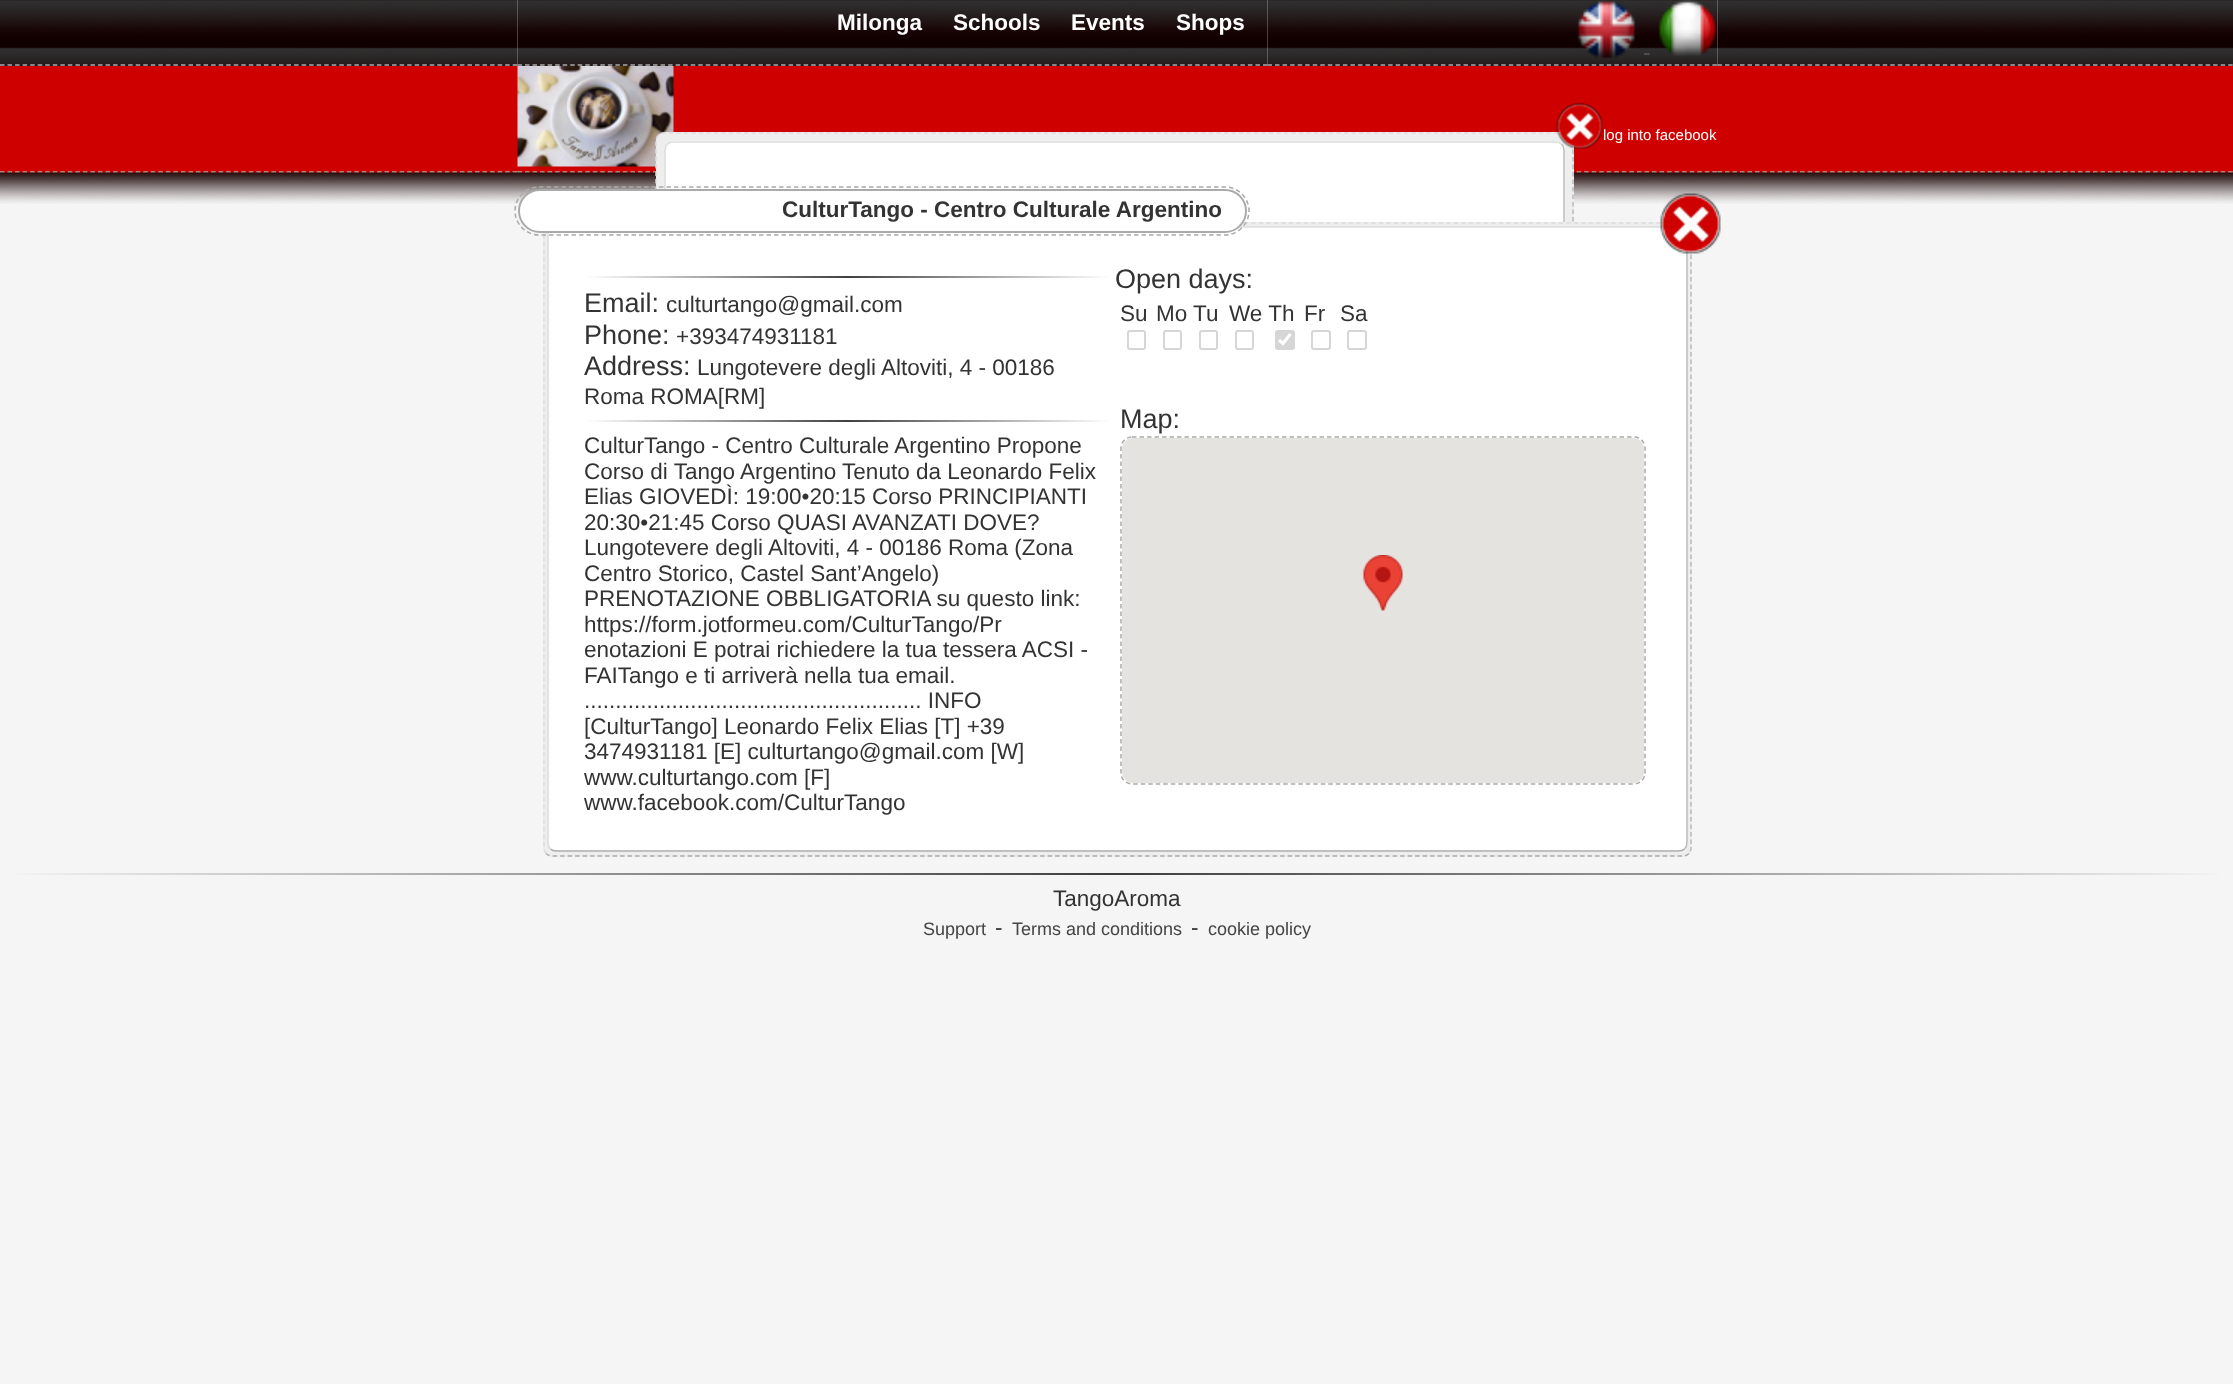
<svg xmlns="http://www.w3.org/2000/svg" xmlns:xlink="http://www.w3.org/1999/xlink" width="2233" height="1384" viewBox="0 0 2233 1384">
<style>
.cls-1{font:bold 22.5px Liberation Sans;fill:#ffffff}
.cls-2{font:22.5px Liberation Sans;fill:#555555}
.cls-3{font:15px Liberation Sans;fill:#ffffff}
.cls-4{font:bold 22.5px Liberation Sans;fill:#333333}
.cls-5{font:27px Liberation Sans;fill:#333333}
.cls-6{font:22.5px Liberation Sans;fill:#333333}
.cls-7{font:18px Liberation Sans;fill:#444444}
</style>
<defs>
<linearGradient id="g1" gradientUnits="userSpaceOnUse" x1="585" y1="277" x2="1110" y2="277"><stop offset="0" stop-color="#ffffff"/><stop offset="0.5" stop-color="#404040"/><stop offset="1" stop-color="#ffffff"/></linearGradient>
<linearGradient id="g2" gradientUnits="userSpaceOnUse" x1="585" y1="421" x2="1110" y2="421"><stop offset="0" stop-color="#ffffff"/><stop offset="0.5" stop-color="#404040"/><stop offset="1" stop-color="#ffffff"/></linearGradient>
<linearGradient id="g3" gradientUnits="userSpaceOnUse" x1="0" y1="874" x2="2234" y2="874"><stop offset="0" stop-color="#f5f5f5"/><stop offset="0.5" stop-color="#3d3d3d"/><stop offset="1" stop-color="#f5f5f5"/></linearGradient>
</defs>
<rect width="100%" height="100%" fill="#f5f5f5"/>
<image xlink:href="image0.png" x="0" y="0" width="518" height="66"/>
<path fill="none" stroke="#aaaaaa" stroke-width="1.5" stroke-dasharray="4.5 3.04" d="M0 65H517.5"/>
<image xlink:href="image1.png" x="517" y="0" width="751" height="66"/>
<path fill="none" stroke="#aaaaaa" stroke-width="1.5" stroke-dasharray="4.5 3.03" d="M517.5 65H1267.5"/>
<image xlink:href="image3.png" x="1267" y="0" width="451" height="66"/>
<image xlink:href="image2.png" x="1717" y="0" width="516" height="66"/>
<path fill="none" stroke="#aaaaaa" stroke-width="1.5" stroke-dasharray="4.5 3.01" d="M1717.5 65H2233.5"/>
<path fill="none" stroke="#aaaaaa" stroke-width="1.5" stroke-dasharray="4.5 3.04" d="M1267.5 65H1717.5"/>
<image xlink:href="image4.png" x="1576" y="0" width="61" height="59"/>
<image xlink:href="image5.png" x="1658" y="0" width="60" height="57"/>
<rect fill="#ce0000" x="0" y="66" width="2233" height="107"/>
<path fill="none" stroke="#aaaaaa" stroke-width="1.5" stroke-dasharray="4.5 3.04" d="M0 172H517.5"/>
<path fill="none" stroke="#aaaaaa" stroke-width="1.5" stroke-dasharray="4.5 3.03" d="M517.5 172H1267.5"/>
<image xlink:href="image7.png" x="517" y="66" width="157" height="101"/>
<path fill="none" stroke="#aaaaaa" stroke-width="1.5" stroke-dasharray="4.5 3.04" d="M1267.5 172H1717.5"/>
<path fill="none" stroke="#aaaaaa" stroke-width="1.5" stroke-dasharray="4.5 3.01" d="M1717.5 172H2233.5"/>
<image xlink:href="image8.png" x="0" y="172" width="2233" height="32"/>
<rect fill="#eeeeee" x="656" y="132" width="918" height="347" rx="9"/>
<path fill="none" stroke="#bbbbbb" stroke-width="1.5" stroke-dasharray="4.5 3" d="M1570.5 135C1572 136.5 1573 139 1573 141V469.5C1573 471.5 1572 474 1570.5 475.5"/>
<path fill="none" stroke="#dddddd" stroke-width="1.5" stroke-dasharray="4.5 3" d="M658.5 475.5C657 474 656 471.5 656 469.5V141C656 139 657 136.5 658.5 135C660 133.5 662.5 133 664.5 133H1564.5C1566.5 133 1569 133.5 1570.5 135"/>
<rect fill="#ffffff" x="665" y="141" width="900" height="329" rx="9"/>
<path fill="none" stroke="#bbbbbb" stroke-width="1.5" d="M1561.5 144C1563 145.5 1564 148 1564 150V460.5C1564 462.5 1563 465 1561.5 466.5"/>
<path fill="none" stroke="#dddddd" stroke-width="1.5" d="M667.5 466.5C666 465 665 462.5 665 460.5V150C665 148 666 145.5 667.5 144C669 142.5 671.5 142 673.5 142H1555.5C1557.5 142 1560 142.5 1561.5 144"/>
<image xlink:href="image6.png" x="1556" y="103" width="47" height="46"/>
<rect fill="#eeeeee" x="543" y="222" width="1149" height="635" rx="9"/>
<path fill="none" stroke="#bbbbbb" stroke-width="1.5" stroke-dasharray="4.5 3" d="M1689 225C1690.5 226.5 1691 229 1691 231V847.5C1691 849.5 1690.5 852 1689 853.5"/>
<path fill="none" stroke="#aaaaaa" stroke-width="1.5" stroke-dasharray="4.5 3" d="M1689 853.5C1687.5 855 1685 856 1683 856H552C550 856 547.5 855 546 853.5"/>
<path fill="none" stroke="#dddddd" stroke-width="1.5" stroke-dasharray="4.5 3" d="M546 853.5C544.5 852 544 849.5 544 847.5V231C544 229 544.5 226.5 546 225C547.5 223.5 550 223 552 223H1683C1685 223 1687.5 223.5 1689 225"/>
<rect fill="#ffffff" x="548" y="227" width="1140" height="625" rx="9"/>
<path fill="none" stroke="#bbbbbb" stroke-width="1.5" d="M1684.5 229.5C1686 231 1687 233.5 1687 235.5V843C1687 845 1686 847.5 1684.5 849"/>
<path fill="none" stroke="#aaaaaa" stroke-width="1.5" d="M1684.5 849C1683 850.5 1680.5 851 1678.5 851H556.5C554.5 851 552 850.5 550.5 849"/>
<path fill="none" stroke="#dddddd" stroke-width="1.5" d="M550.5 849C549 847.5 548 845 548 843V235.5C548 233.5 549 231 550.5 229.5C552 228 554.5 227 556.5 227H1678.5C1680.5 227 1683 228 1684.5 229.5"/>
<path fill="none" stroke="#aaaaaa" stroke-width="1.5" stroke-dasharray="4.5 3" d="M539 187H1225C1238 187 1249 197.5 1249 211C1249 224 1238 235 1225 235H539C526 235 515 224 515 211C515 197.5 526 187 539 187Z"/>
<rect fill="#ffffff" stroke="#aaaaaa" stroke-width="2" x="519" y="190" width="727" height="42" rx="21"/>
<image xlink:href="image9.png" x="1660" y="193" width="61" height="61"/>
<rect fill="url(#g1)" x="585" y="276" width="525" height="2"/>
<rect fill="url(#g2)" x="585" y="420" width="525" height="2"/>
<rect fill="none" stroke="#d6d6d6" stroke-width="2" x="1128" y="331" width="17" height="18" rx="2"/>
<rect fill="none" stroke="#d6d6d6" stroke-width="2" x="1164" y="331" width="17" height="18" rx="2"/>
<rect fill="none" stroke="#d6d6d6" stroke-width="2" x="1236" y="331" width="17" height="18" rx="2"/>
<rect fill="none" stroke="#d6d6d6" stroke-width="2" x="1312" y="331" width="18" height="18" rx="2"/>
<rect fill="none" stroke="#d6d6d6" stroke-width="2" x="1348" y="331" width="18" height="18" rx="2"/>
<rect fill="none" stroke="#d6d6d6" stroke-width="2" x="1200" y="331" width="17" height="18" rx="2"/>
<rect fill="#d6d6d6" x="1275" y="330" width="20" height="20" rx="3"/>
<path fill="none" stroke="#ffffff" stroke-width="3.1" d="M1279 340L1283 343.5L1290.5 334"/>
<path fill="none" stroke="#aaaaaa" stroke-width="1.5" stroke-dasharray="4.5 3" d="M1132 437H1634C1640 437 1645 442 1645 448V773C1645 779 1640 784 1634 784H1132C1126 784 1121 779 1121 773V448C1121 442 1126 437 1132 437Z"/>
<rect fill="#e5e3df" x="1122" y="438" width="522" height="345" rx="11"/>
<image xlink:href="image10.png" x="1363" y="555" width="40" height="56"/>
<rect fill="url(#g3)" x="15" y="873" width="2204" height="2"/>
<text class="cls-1" x="837" y="30">Milonga</text>
<text class="cls-1" x="953" y="30">Schools</text>
<text class="cls-1" x="1071" y="30">Events</text>
<text class="cls-1" x="1176" y="30">Shops</text>
<text class="cls-2" x="1643" y="60">-</text>
<text class="cls-3" x="1603" y="140">log into facebook</text>
<text class="cls-4" x="782" y="217">CulturTango - Centro Culturale Argentino</text>
<text class="cls-5" x="584" y="312">Email:</text>
<text class="cls-6" x="666" y="312">culturtango@gmail.com</text>
<text class="cls-5" x="584" y="344">Phone:</text>
<text class="cls-6" x="676" y="344">+393474931181</text>
<text class="cls-5" x="584" y="375">Address:</text>
<text class="cls-6" x="697" y="375">Lungotevere degli Altoviti, 4 - 00186</text>
<text class="cls-6" x="584" y="404">Roma ROMA[RM]</text>
<text class="cls-6"><tspan x="584" y="453">CulturTango - Centro Culturale Argentino Propone</tspan><tspan x="584" y="479">Corso di Tango Argentino Tenuto da Leonardo Felix</tspan><tspan x="584" y="504">Elias GIOVEDÌ: 19:00•20:15 Corso PRINCIPIANTI</tspan><tspan x="584" y="530">20:30•21:45 Corso QUASI AVANZATI DOVE?</tspan><tspan x="584" y="555">Lungotevere degli Altoviti, 4 - 00186 Roma (Zona</tspan><tspan x="584" y="581">Centro Storico, Castel Sant’Angelo)</tspan><tspan x="584" y="606">PRENOTAZIONE OBBLIGATORIA su questo link:</tspan><tspan x="584" y="632">https://form.jotformeu.com/CulturTango/Pr</tspan><tspan x="584" y="657">enotazioni E potrai richiedere la tua tessera ACSI -</tspan><tspan x="584" y="683">FAITango e ti arriverà nella tua email.</tspan><tspan x="584" y="708">...................................................... INFO</tspan><tspan x="584" y="734">[CulturTango] Leonardo Felix Elias [T] +39</tspan><tspan x="584" y="759">3474931181 [E] culturtango@gmail.com [W]</tspan><tspan x="584" y="785">www.culturtango.com [F]</tspan><tspan x="584" y="810">www.facebook.com/CulturTango</tspan></text>
<text class="cls-5" x="1115" y="288">Open days:</text>
<text class="cls-6" x="1120" y="321">Su</text>
<text class="cls-6" x="1156" y="321">Mo Tu</text>
<text class="cls-6" x="1229" y="321">We Th</text>
<text class="cls-6" x="1304" y="321">Fr</text>
<text class="cls-6" x="1340" y="321">Sa</text>
<text class="cls-5" x="1120" y="428">Map:</text>
<text class="cls-6" x="1053" y="906">TangoAroma</text>
<text class="cls-7" x="923" y="935">Support</text>
<text class="cls-6" x="995" y="935">-</text>
<text class="cls-7" x="1012" y="935">Terms and conditions</text>
<text class="cls-6" x="1191" y="935">-</text>
<text class="cls-7" x="1208" y="935">cookie policy</text>
</svg>
